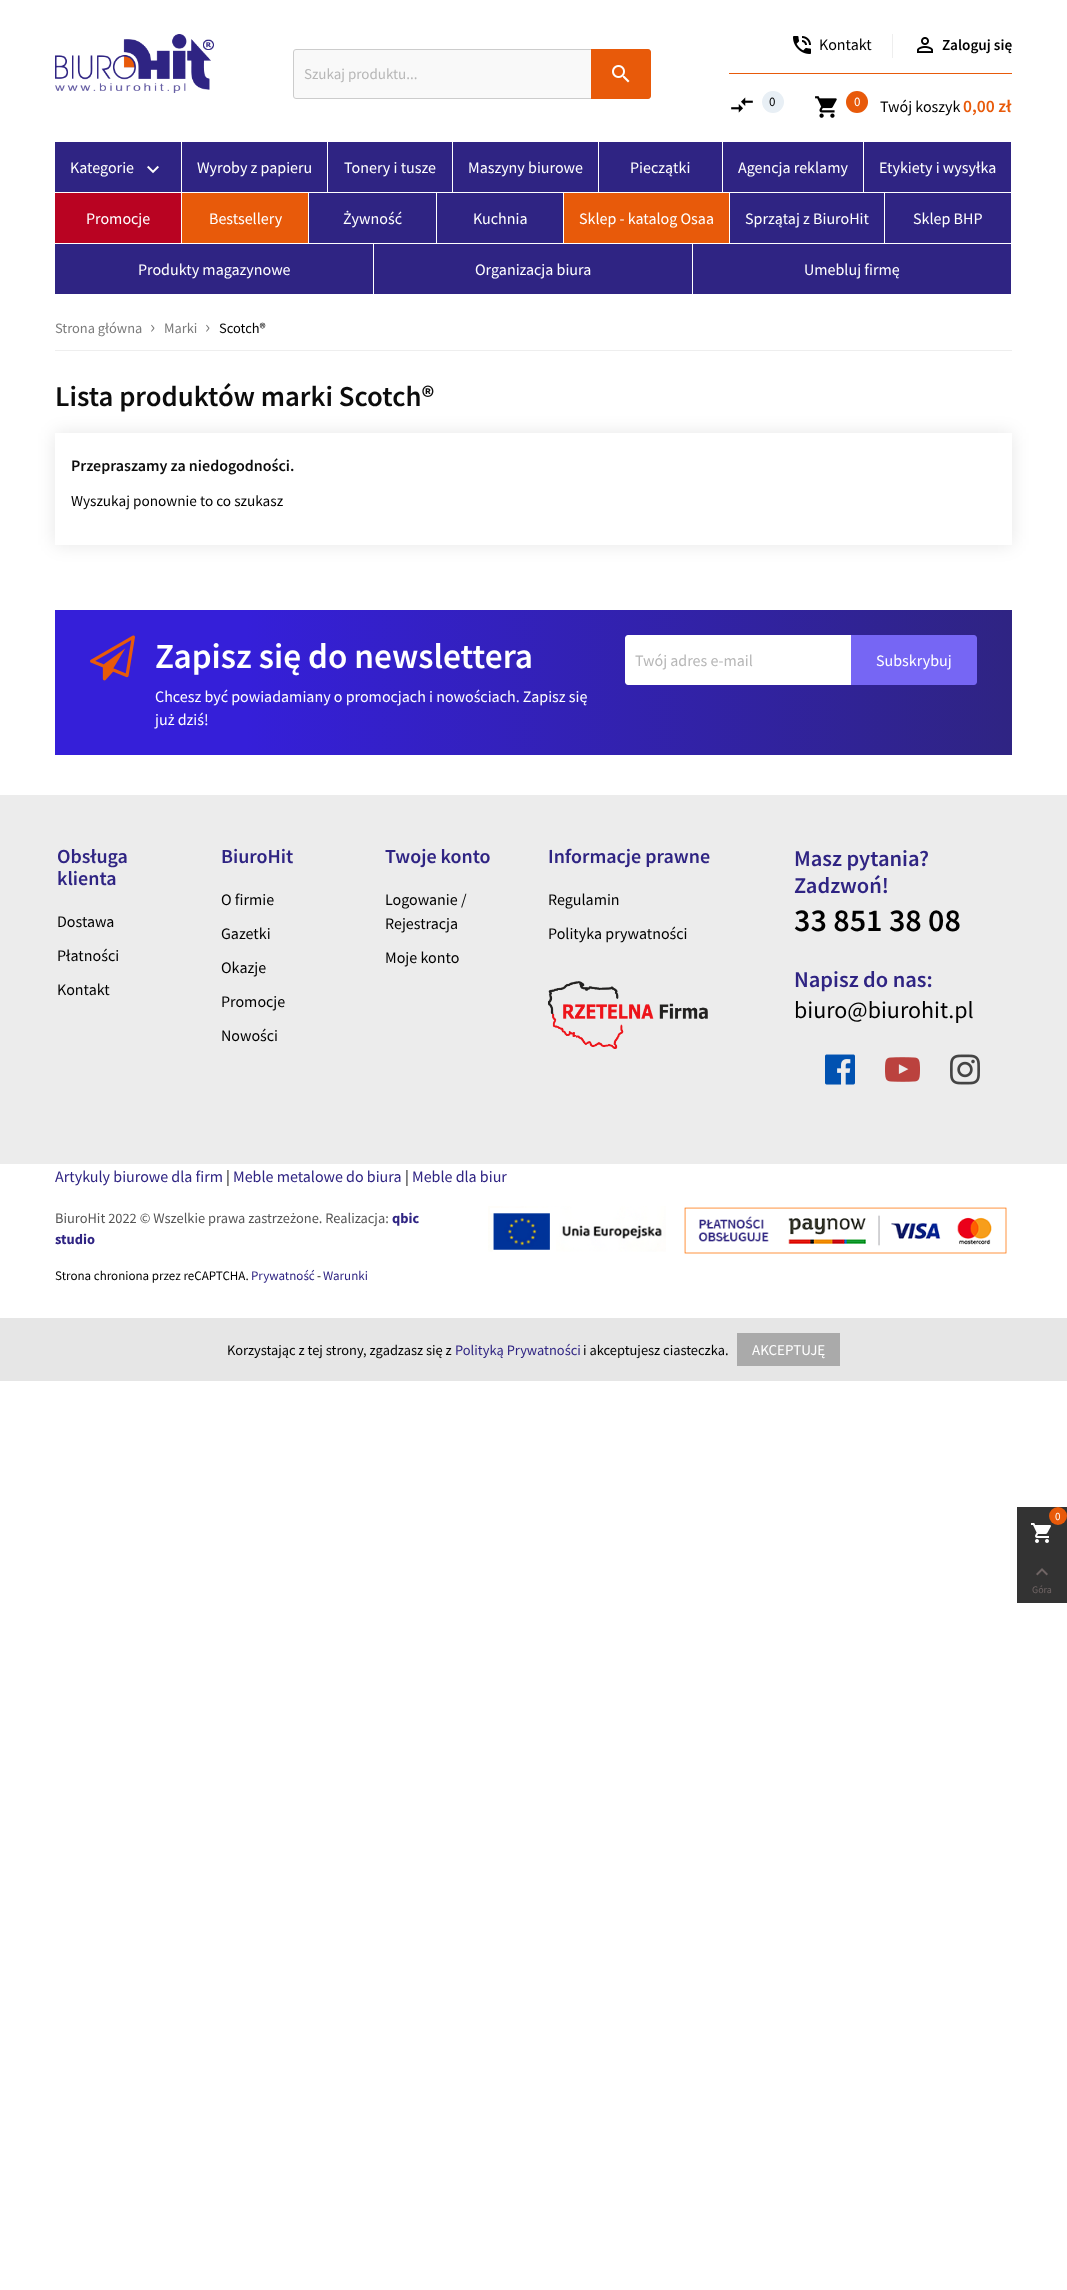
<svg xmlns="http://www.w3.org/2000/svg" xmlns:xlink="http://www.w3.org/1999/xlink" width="1067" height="2290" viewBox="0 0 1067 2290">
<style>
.cls-1{font:15px Source Sans Pro;fill:#b7b7b7}
.cls-2{font:16px Source Sans Pro;fill:#000000}
.cls-3{font:600 15.25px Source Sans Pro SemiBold;fill:#000000}
.cls-4{font:13px Source Sans Pro;fill:#000000}
.cls-5{font:13px Source Sans Pro;fill:#ffffff}
.cls-6{font:600 17.5px Source Sans Pro SemiBold;fill:#e85a0a}
.cls-7{font:16px Source Sans Pro;fill:#ffffff}
.cls-8{font:14.4px Source Sans Pro;fill:#7b7b7b}
.cls-9{font:19px Source Sans Pro;fill:#7b7b7b}
.cls-10{font:14.4px Source Sans Pro;fill:#000000}
.cls-11{font:600 28.75px Source Sans Pro SemiBold;fill:#0c0c0c}
.cls-12{font:600 16px Source Sans Pro SemiBold;fill:#0c0c0c}
.cls-13{font:15.25px Source Sans Pro;fill:#000000}
.cls-14{font:600 35.25px Source Sans Pro SemiBold;fill:#ffffff}
.cls-15{font:16px Source Sans Pro;fill:#b7b7b7}
.cls-16{font:600 20px Source Sans Pro SemiBold;fill:#2f2483}
.cls-17{font:600 22.5px Source Sans Pro SemiBold;fill:#2f2483}
.cls-18{font:600 32px Source Sans Pro SemiBold;fill:#000000}
.cls-19{font:24px Source Sans Pro;fill:#000000}
.cls-20{font:16px Source Sans Pro;fill:#2f2483}
.cls-21{font:14.4px Source Sans Pro;fill:#555555}
.cls-22{font:bold 14.4px Source Sans Pro;fill:#2f2483}
.cls-23{font:13px Source Sans Pro;fill:#2f2483}
.cls-24{font:14.4px Source Sans Pro;fill:#2f2483}
.cls-25{font:15px Source Sans Pro;fill:#ffffff}
.cls-26{font:11px Source Sans Pro;fill:#ffffff}
.cls-27{font:10px Source Sans Pro;fill:#706565}
</style>
<defs>
<clipPath id="clip1"><path d="M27 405H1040V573H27ZM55 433H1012V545H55Z" clip-rule="evenodd"/></clipPath>
<linearGradient id="g1" gradientUnits="userSpaceOnUse" x1="55" y1="683" x2="1012" y2="683"><stop offset="0.2" stop-color="#351fd9"/><stop offset="1" stop-color="#2f2483"/></linearGradient>
</defs>
<rect width="100%" height="100%" fill="#ffffff"/>
<image xlink:href="image0.png" x="55" y="34" width="159" height="59"/>
<rect fill="#f9f9f9" stroke="#cccccc" x="293.5" y="49.5" width="357" height="49" rx="2.5"/>
<path fill="#e85a0a" d="M591 49H648C649.5 49 651 50.5 651 52V96C651 97.5 649.5 99 648 99H591Z"/>
<image xlink:href="image1.png" x="612" y="65" width="18" height="18"/>
<image xlink:href="image2.png" x="793" y="36" width="18" height="18"/>
<rect fill="#eeeeee" x="892" y="34" width="1" height="24"/>
<image xlink:href="image3.png" x="917" y="37" width="16" height="16"/>
<rect fill="#e85a0a" x="729" y="73" width="283" height="1"/>
<image xlink:href="image4.png" x="731" y="97" width="22" height="16"/>
<circle fill="#e8eff5" cx="773" cy="102" r="11"/>
<image xlink:href="image5.png" x="815" y="96" width="22" height="22"/>
<circle fill="#e85a0a" cx="857" cy="102" r="11"/>
<rect fill="#2f2483" x="55" y="142" width="956" height="152"/>
<rect fill="#ffffff" x="181" y="142" width="1" height="102"/>
<rect fill="#ffffff" x="54" y="192" width="128" height="1"/>
<image xlink:href="image6.png" x="147" y="165" width="12" height="9"/>
<rect fill="#ffffff" x="327" y="142" width="1" height="51"/>
<rect fill="#ffffff" x="181" y="192" width="147" height="1"/>
<rect fill="#ffffff" x="452" y="142" width="1" height="51"/>
<rect fill="#ffffff" x="327" y="192" width="126" height="1"/>
<rect fill="#ffffff" x="598" y="142" width="1" height="51"/>
<rect fill="#ffffff" x="452" y="192" width="147" height="1"/>
<rect fill="#ffffff" x="722" y="142" width="1" height="51"/>
<rect fill="#ffffff" x="598" y="192" width="125" height="1"/>
<rect fill="#ffffff" x="863" y="142" width="1" height="51"/>
<rect fill="#ffffff" x="722" y="192" width="290" height="1"/>
<rect fill="#ffffff" x="54" y="243" width="128" height="1"/>
<rect fill="#b90322" x="55" y="193" width="126" height="50"/>
<rect fill="#ffffff" x="308" y="193" width="1" height="51"/>
<rect fill="#ffffff" x="181" y="243" width="128" height="1"/>
<rect fill="#e85a0a" x="182" y="193" width="126" height="50"/>
<rect fill="#ffffff" x="436" y="193" width="1" height="51"/>
<rect fill="#ffffff" x="308" y="243" width="129" height="1"/>
<rect fill="#ffffff" x="563" y="193" width="1" height="51"/>
<rect fill="#ffffff" x="436" y="243" width="128" height="1"/>
<rect fill="#ffffff" x="729" y="193" width="1" height="51"/>
<rect fill="#ffffff" x="563" y="243" width="167" height="1"/>
<rect fill="#e85a0a" x="564" y="193" width="165" height="50"/>
<rect fill="#ffffff" x="884" y="193" width="1" height="51"/>
<rect fill="#ffffff" x="729" y="243" width="283" height="1"/>
<rect fill="#ffffff" x="373" y="244" width="1" height="51"/>
<rect fill="#ffffff" x="692" y="244" width="1" height="51"/>
<rect fill="#eeeeee" x="55" y="350" width="957" height="1"/>
<g clip-path="url(#clip1)">
<rect fill="#000000" fill-opacity="0.1" filter="blur(9px)" x="55" y="433" width="957" height="112"/>
</g>
<rect fill="url(#g1)" x="55" y="610" width="957" height="145"/>
<image xlink:href="image7.png" x="90" y="635" width="45" height="46"/>
<path fill="#ffffff" d="M628 635H851V685H628C626.5 685 625 683.5 625 682V638C625 636.5 626.5 635 628 635Z"/>
<path fill="#7666f4" d="M851 635H974C975.5 635 977 636.5 977 638V682C977 683.5 975.5 685 974 685H851Z"/>
<rect fill="#ececec" x="0" y="795" width="1067" height="369"/>
<image xlink:href="image8.png" x="548" y="981" width="160" height="68"/>
<image xlink:href="image9.png" x="825" y="1054" width="30" height="31"/>
<image xlink:href="image10.png" x="885" y="1057" width="35" height="25"/>
<image xlink:href="image11.png" x="950" y="1054" width="30" height="31"/>
<image xlink:href="image12.png" x="488" y="1206" width="178" height="46"/>
<image xlink:href="image13.png" x="684" y="1207" width="323" height="47"/>
<rect fill="#e6e6e6" x="0" y="1318" width="1067" height="63"/>
<rect fill="#aaaaaa" x="737" y="1333" width="103" height="33"/>
<rect fill="#333333" x="1017" y="1507" width="50" height="96"/>
<image xlink:href="image14.png" x="1031" y="1523" width="20" height="20"/>
<circle fill="#e85a0a" cx="1058" cy="1516" r="9"/>
<image xlink:href="image15.png" x="1036" y="1568" width="12" height="8"/>
<text class="cls-1" x="304" y="79">Szukaj produktu...</text>
<text class="cls-2" x="819" y="50">Kontakt</text>
<text class="cls-3" x="942" y="50">Zaloguj się</text>
<text class="cls-4" x="769" y="106">0</text>
<text class="cls-5" x="854" y="106">0</text>
<text class="cls-2" x="880" y="112">Twój koszyk</text>
<text class="cls-6" x="963" y="112">0,00 zł</text>
<text class="cls-7" x="70" y="173">Kategorie</text>
<text class="cls-7" x="197" y="173">Wyroby z papieru</text>
<text class="cls-7" x="344" y="173">Tonery i tusze</text>
<text class="cls-7" x="468" y="173">Maszyny biurowe</text>
<text class="cls-7" x="630" y="173">Pieczątki</text>
<text class="cls-7" x="738" y="173">Agencja reklamy</text>
<text class="cls-7" x="879" y="173">Etykiety i wysyłka</text>
<text class="cls-7" x="86" y="224">Promocje</text>
<text class="cls-7" x="209" y="224">Bestsellery</text>
<text class="cls-7" x="343" y="224">Żywność</text>
<text class="cls-7" x="473" y="224">Kuchnia</text>
<text class="cls-7" x="579" y="224">Sklep - katalog Osaa</text>
<text class="cls-7" x="745" y="224">Sprzątaj z BiuroHit</text>
<text class="cls-7" x="913" y="224">Sklep BHP</text>
<text class="cls-7" x="138" y="275">Produkty magazynowe</text>
<text class="cls-7" x="475" y="275">Organizacja biura</text>
<text class="cls-7" x="804" y="275">Umebluj firmę</text>
<text class="cls-8" x="55" y="333">Strona główna</text>
<text class="cls-9" x="150" y="333">›</text>
<text class="cls-8" x="164" y="333">Marki</text>
<text class="cls-9" x="205" y="333">›</text>
<text class="cls-10" x="219" y="333">Scotch®</text>
<text class="cls-11" x="55" y="406">Lista produktów marki Scotch®</text>
<text class="cls-12" x="71" y="471">Przepraszamy za niedogodności.</text>
<text class="cls-13" x="71" y="506">Wyszukaj ponownie to co szukasz</text>
<text class="cls-14" x="155" y="668">Zapisz się do newslettera</text>
<text class="cls-7"><tspan x="155" y="702">Chcesz być powiadamiany o promocjach i nowościach. Zapisz się</tspan><tspan x="155" y="725">już dziś!</tspan></text>
<text class="cls-15" x="635" y="666">Twój adres e-mail</text>
<text class="cls-7" x="876" y="666">Subskrybuj</text>
<text class="cls-16"><tspan x="57" y="863">Obsługa</tspan><tspan x="57" y="885">klienta</tspan></text>
<text class="cls-2" x="57" y="927">Dostawa</text>
<text class="cls-2" x="57" y="961">Płatności</text>
<text class="cls-2" x="57" y="995">Kontakt</text>
<text class="cls-16" x="221" y="863">BiuroHit</text>
<text class="cls-2" x="221" y="905">O firmie</text>
<text class="cls-2" x="221" y="939">Gazetki</text>
<text class="cls-2" x="221" y="973">Okazje</text>
<text class="cls-2" x="221" y="1007">Promocje</text>
<text class="cls-2" x="221" y="1041">Nowości</text>
<text class="cls-16" x="385" y="863">Twoje konto</text>
<text class="cls-2"><tspan x="385" y="905">Logowanie /</tspan><tspan x="385" y="929">Rejestracja</tspan></text>
<text class="cls-2" x="385" y="963">Moje konto</text>
<text class="cls-16" x="548" y="863">Informacje prawne</text>
<text class="cls-2" x="548" y="905">Regulamin</text>
<text class="cls-2" x="548" y="939">Polityka prywatności</text>
<text class="cls-17"><tspan x="794" y="866">Masz pytania?</tspan><tspan x="794" y="893">Zadzwoń!</tspan></text>
<text class="cls-18" x="794" y="931">33 851 38 08</text>
<text class="cls-17" x="794" y="987">Napisz do nas:</text>
<text class="cls-19" x="794" y="1018">biuro@biurohit.pl</text>
<text class="cls-20" x="55" y="1182">Artykuly biurowe dla firm</text>
<text class="cls-2" x="226" y="1182">|</text>
<text class="cls-20" x="233" y="1182">Meble metalowe do biura</text>
<text class="cls-2" x="405" y="1182">|</text>
<text class="cls-20" x="412" y="1182">Meble dla biur</text>
<text class="cls-21" x="55" y="1223">BiuroHit 2022 © Wszelkie prawa zastrzeżone. Realizacja:</text>
<text class="cls-22" x="392" y="1223">qbic</text>
<text class="cls-22" x="55" y="1244">studio</text>
<text class="cls-4" x="55" y="1280">Strona chroniona przez reCAPTCHA.</text>
<text class="cls-23" x="251" y="1280">Prywatność</text>
<text class="cls-4" x="317" y="1280">-</text>
<text class="cls-23" x="323" y="1280">Warunki</text>
<text class="cls-10" x="227" y="1355">Korzystając z tej strony, zgadzasz się z</text>
<text class="cls-24" x="455" y="1355">Polityką Prywatności</text>
<text class="cls-10" x="583" y="1355">i akceptujesz ciasteczka.</text>
<text class="cls-25" x="752" y="1355">AKCEPTUJĘ</text>
<text class="cls-26" x="1055" y="1520">0</text>
<text class="cls-27" x="1032" y="1593">Góra</text>
</svg>
